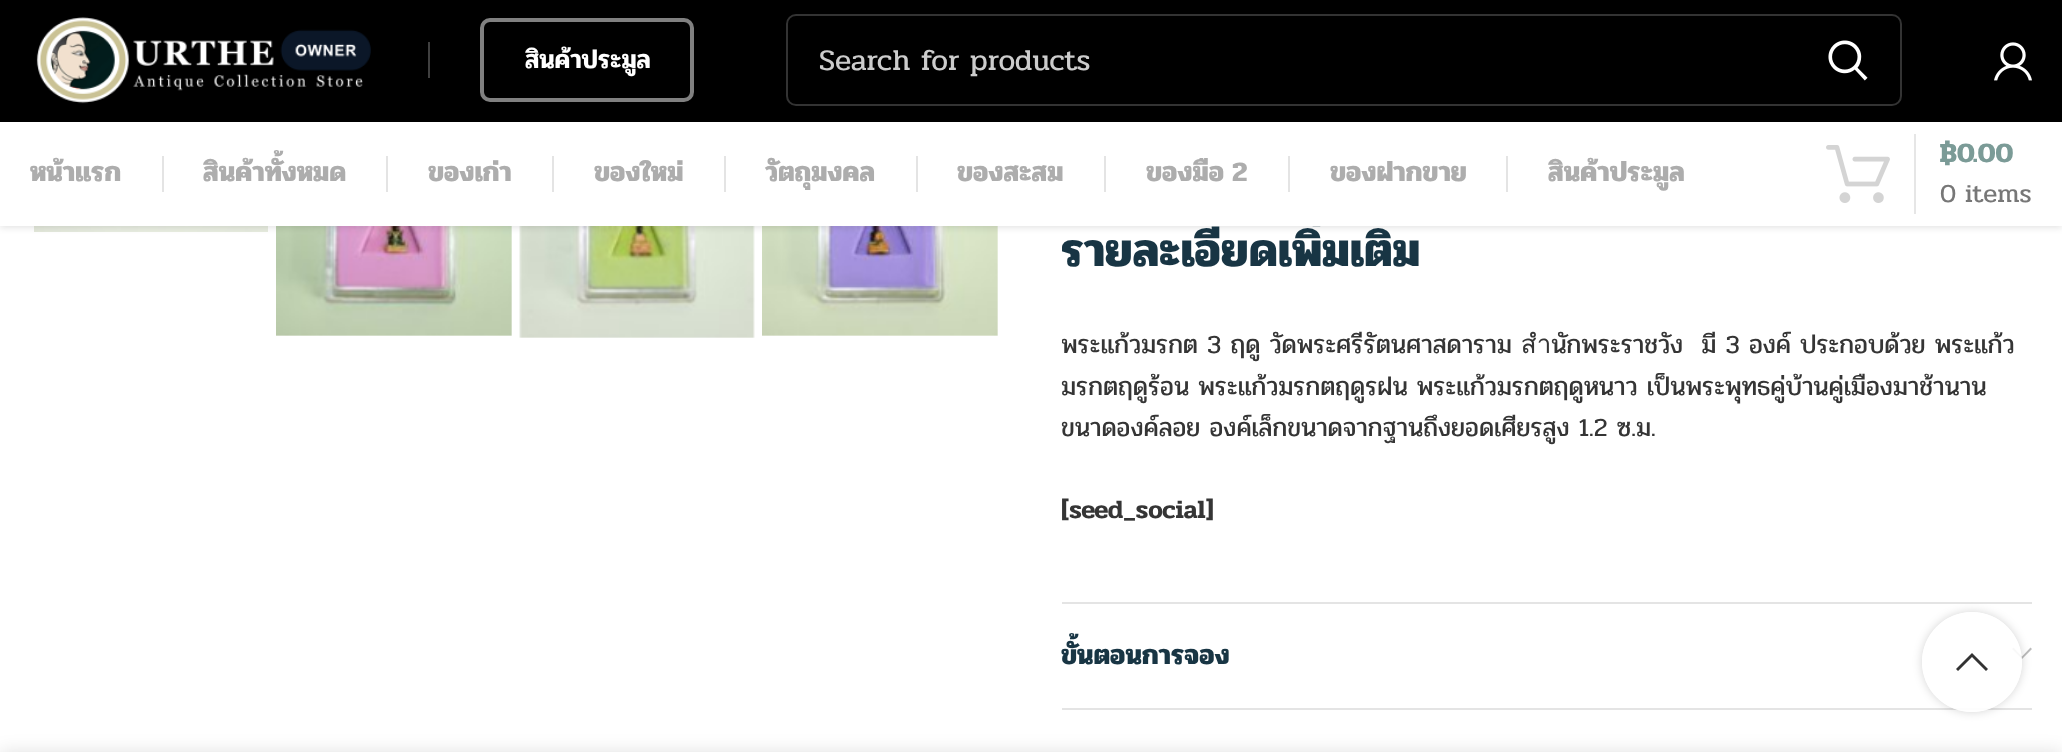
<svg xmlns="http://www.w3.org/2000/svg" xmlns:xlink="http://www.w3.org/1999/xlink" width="2062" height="752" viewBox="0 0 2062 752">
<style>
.cls-1{font:600 26px Pridi;fill:#ffffff}
.cls-2{font:30px Pridi;fill:#cccccc}
.cls-3{font:bold 48px Pridi;fill:#183544}
.cls-4{font:bold 28px Pridi;fill:#7b9b97}
.cls-5{font:26px Pridi;fill:#777777}
.cls-6{font:bold 28px Pridi;fill:#adadad}
.cls-7{font:26px Pridi;fill:#353535}
.cls-8{font:600 26px Pridi;fill:#353535}
.cls-9{font:bold 28px Pridi;fill:#183544}
</style>
<defs>
<clipPath id="clip1"><path d="M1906 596H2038V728H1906ZM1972 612C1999.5 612 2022 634.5 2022 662C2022 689.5 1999.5 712 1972 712C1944.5 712 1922 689.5 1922 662C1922 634.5 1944.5 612 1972 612Z" clip-rule="evenodd"/></clipPath>
<clipPath id="clip2"><rect x="1062" y="218" width="970" height="354"/></clipPath>
</defs>
<rect width="100%" height="100%" fill="#ffffff"/>
<image xlink:href="image4.png" x="34" y="226" width="234" height="6"/>
<image xlink:href="image5.png" x="276" y="226" width="236" height="110"/>
<image xlink:href="image6.png" x="519" y="226" width="236" height="112"/>
<image xlink:href="image7.png" x="762" y="226" width="236" height="110"/>
<rect fill="#000000" fill-opacity="0.1" filter="blur(3px)" x="0" y="2" width="2062" height="226"/>
<rect fill="#000000" x="0" y="0" width="2062" height="122"/>
<image xlink:href="image0.png" x="36" y="17" width="335" height="87"/>
<rect fill="#404040" x="428" y="42" width="2" height="36"/>
<rect fill="none" stroke="#808080" stroke-width="4" x="482" y="20" width="210" height="80" rx="8"/>
<rect fill="none" stroke="#333333" stroke-width="2" x="787" y="15" width="1114" height="90" rx="9"/>
<image xlink:href="image1.png" x="1828" y="40" width="40" height="41"/>
<image xlink:href="image2.png" x="1994" y="42" width="38" height="39"/>
<rect fill="#e4e4e4" x="1062" y="602" width="970" height="2"/>
<rect fill="#e4e4e4" x="1062" y="708" width="970" height="2"/>
<path fill="#bbbbbb" d="M2030.5 647.5L2032 649L2022 659L2012 649L2013.5 647.5L2022 656.5Z"/>
<g clip-path="url(#clip1)">
<rect fill="#000000" fill-opacity="0.17" filter="blur(5px)" x="1922" y="612" width="100" height="100" rx="50"/>
</g>
<circle fill="#ffffff" fill-opacity="0.9" cx="1972" cy="662" r="50"/>
<path fill="#333333" d="M1972 653L1988 669L1986 671L1972 657L1958 671L1956 669Z"/>
<rect fill="#000000" fill-opacity="0.12" filter="blur(9px)" x="0" y="752" width="2062" height="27"/>
<text class="cls-1" x="525" y="68">สินค้าประมูล</text>
<text class="cls-2" x="819" y="70">Search for products</text>
<g clip-path="url(#clip2)">
<text class="cls-3" x="1061" y="266">รายละเอียดเพิ่มเติม</text>
</g>
<rect fill="#ffffff" x="0" y="122" width="2062" height="104"/>
<image xlink:href="image3.png" x="1826" y="145" width="64" height="58"/>
<text class="cls-4" x="1940" y="162">฿0.00</text>
<text class="cls-5" x="1940" y="202">0 items</text>
<rect fill="#e6e6e6" x="1914" y="134" width="2" height="80"/>
<text class="cls-6" x="1548" y="181">สินค้าประมูล</text>
<text class="cls-6" x="1330" y="181">ของฝากขาย</text>
<rect fill="#e4e4e4" x="1506" y="156" width="2" height="36"/>
<text class="cls-6" x="1146" y="181">ของมือ 2</text>
<rect fill="#e4e4e4" x="1288" y="156" width="2" height="36"/>
<text class="cls-6" x="957" y="181">ของสะสม</text>
<rect fill="#e4e4e4" x="1104" y="156" width="2" height="36"/>
<text class="cls-6" x="765" y="181">วัตถุมงคล</text>
<rect fill="#e4e4e4" x="916" y="156" width="2" height="36"/>
<text class="cls-6" x="594" y="181">ของใหม่</text>
<rect fill="#e4e4e4" x="724" y="156" width="2" height="36"/>
<text class="cls-6" x="428" y="181">ของเก่า</text>
<rect fill="#e4e4e4" x="552" y="156" width="2" height="36"/>
<text class="cls-6" x="203" y="181">สินค้าทั้งหมด</text>
<rect fill="#e4e4e4" x="386" y="156" width="2" height="36"/>
<text class="cls-6" x="30" y="181">หน้าแรก</text>
<rect fill="#e4e4e4" x="162" y="156" width="2" height="36"/>
<g clip-path="url(#clip2)">
<text class="cls-7" xml:space="preserve" x="1061" y="353">พระแก้วมรกต 3 ฤดู วัดพระศรีรัตนศาสดาราม สำนักพระราชวัง  มี 3 องค์ ประกอบด้วย พระแก้ว</text>
</g>
<text class="cls-7"><tspan x="1061" y="395">มรกตฤดูร้อน พระแก้วมรกตฤดูรฝน พระแก้วมรกตฤดูหนาว เป็นพระพุทธคู่บ้านคู่เมืองมาช้านาน</tspan><tspan x="1061" y="436">ขนาดองค์ลอย องค์เล็กขนาดจากฐานถึงยอดเศียรสูง 1.2 ซ.ม.</tspan></text>
<text class="cls-8" x="1061" y="518">[seed_social]</text>
<text class="cls-9" x="1061" y="664">ขั้นตอนการจอง</text>
</svg>
